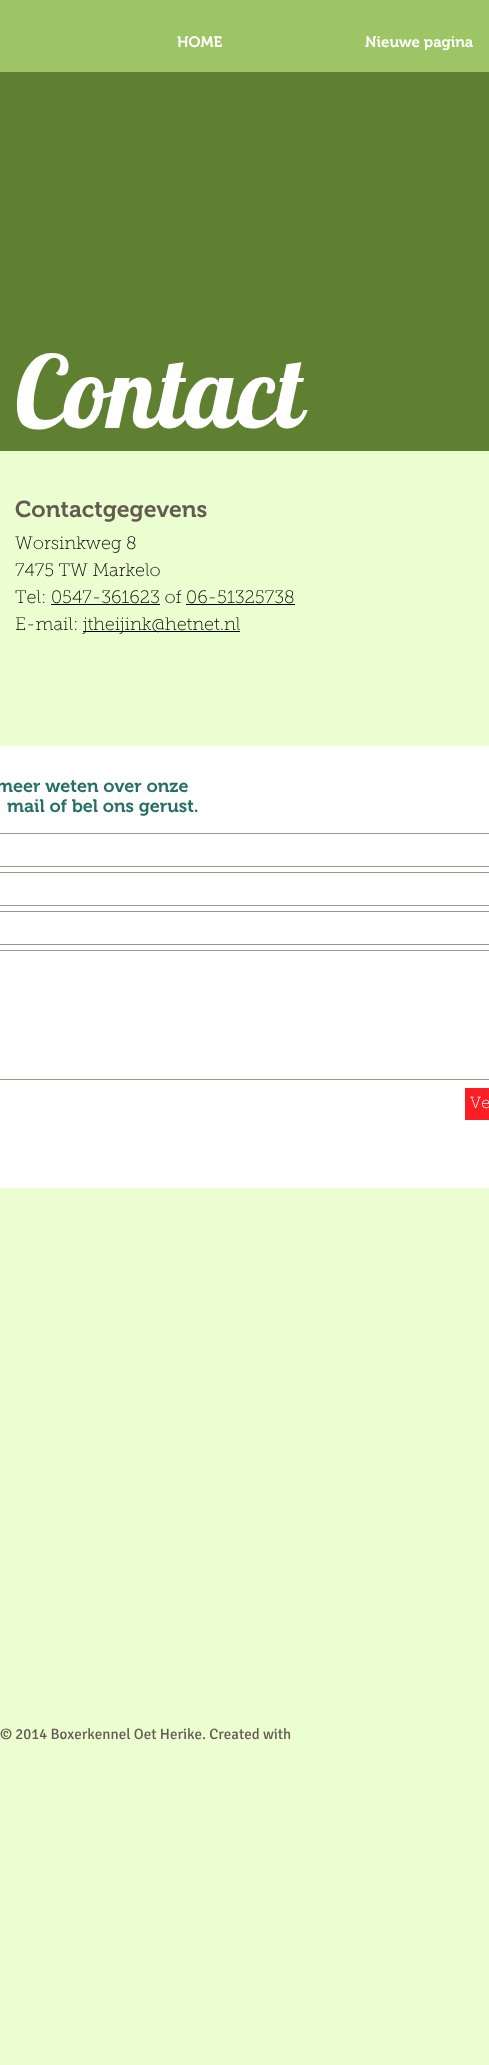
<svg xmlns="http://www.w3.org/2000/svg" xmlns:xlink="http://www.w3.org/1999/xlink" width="489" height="2065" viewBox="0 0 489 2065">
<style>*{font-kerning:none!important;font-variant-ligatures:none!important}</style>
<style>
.cls-1{font:600 15px 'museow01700';fill:#ffffff}
.cls-2{font:100px Lobster;fill:#ffffff}
.cls-3{font:600 23px 'museow01700';fill:#635a50}
.cls-4{font:100 18px 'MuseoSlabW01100';fill:#000000}
.cls-5{font:600 18px 'museow01700';fill:#266f66}
.cls-6{font:100 16px 'MuseoSlabW01100';fill:#ffffff}
.cls-7{font:15px Signika;fill:#635a50}
</style>
<rect width="100%" height="100%" fill="#ecffd1"/>
<rect fill="#9dc565" x="0" y="0" width="489" height="72"/>
<rect fill="#5f8031" x="0" y="72" width="489" height="379"/>
<rect fill="#000000" x="51" y="604" width="109" height="1"/>
<rect fill="#000000" x="186" y="604" width="109" height="1"/>
<rect fill="#000000" x="83" y="631" width="157" height="1"/>
<rect fill="#ffffff" x="0" y="746" width="489" height="442"/>
<rect fill="none" stroke="#9b938c" x="-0.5" y="833.5" width="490" height="33"/>
<rect fill="none" stroke="#9b938c" x="-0.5" y="872.5" width="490" height="33"/>
<rect fill="none" stroke="#9b938c" x="-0.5" y="911.5" width="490" height="33"/>
<rect fill="none" stroke="#9b938c" x="-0.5" y="950.5" width="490" height="129"/>
<rect fill="#ff1d25" x="465" y="1088" width="24" height="32"/>
<text class="cls-1" x="177" y="47">HOME</text>
<text class="cls-1" x="365" y="47">Nieuwe pagina</text>
<text class="cls-2" x="15" y="428">Contact</text>
<text class="cls-3" x="15" y="517">Contactgegevens</text>
<text class="cls-4"><tspan x="15" y="549">Worsinkweg 8</tspan><tspan x="15" y="576">7475 TW Markelo</tspan><tspan x="15" y="603">Tel: 0547-361623 of 06-51325738</tspan><tspan x="15" y="630">E-mail:</tspan></text>
<text class="cls-4" x="83" y="630">jtheijink@hetnet.nl</text>
<text class="cls-5" x="-4" y="792">meer weten over onze</text>
<text class="cls-5" x="7" y="812">mail of bel ons gerust.</text>
<text class="cls-6" x="470" y="1108">Ve</text>
<text class="cls-7" x="0" y="1739">© 2014 Boxerkennel Oet Herike. Created with</text>
</svg>
